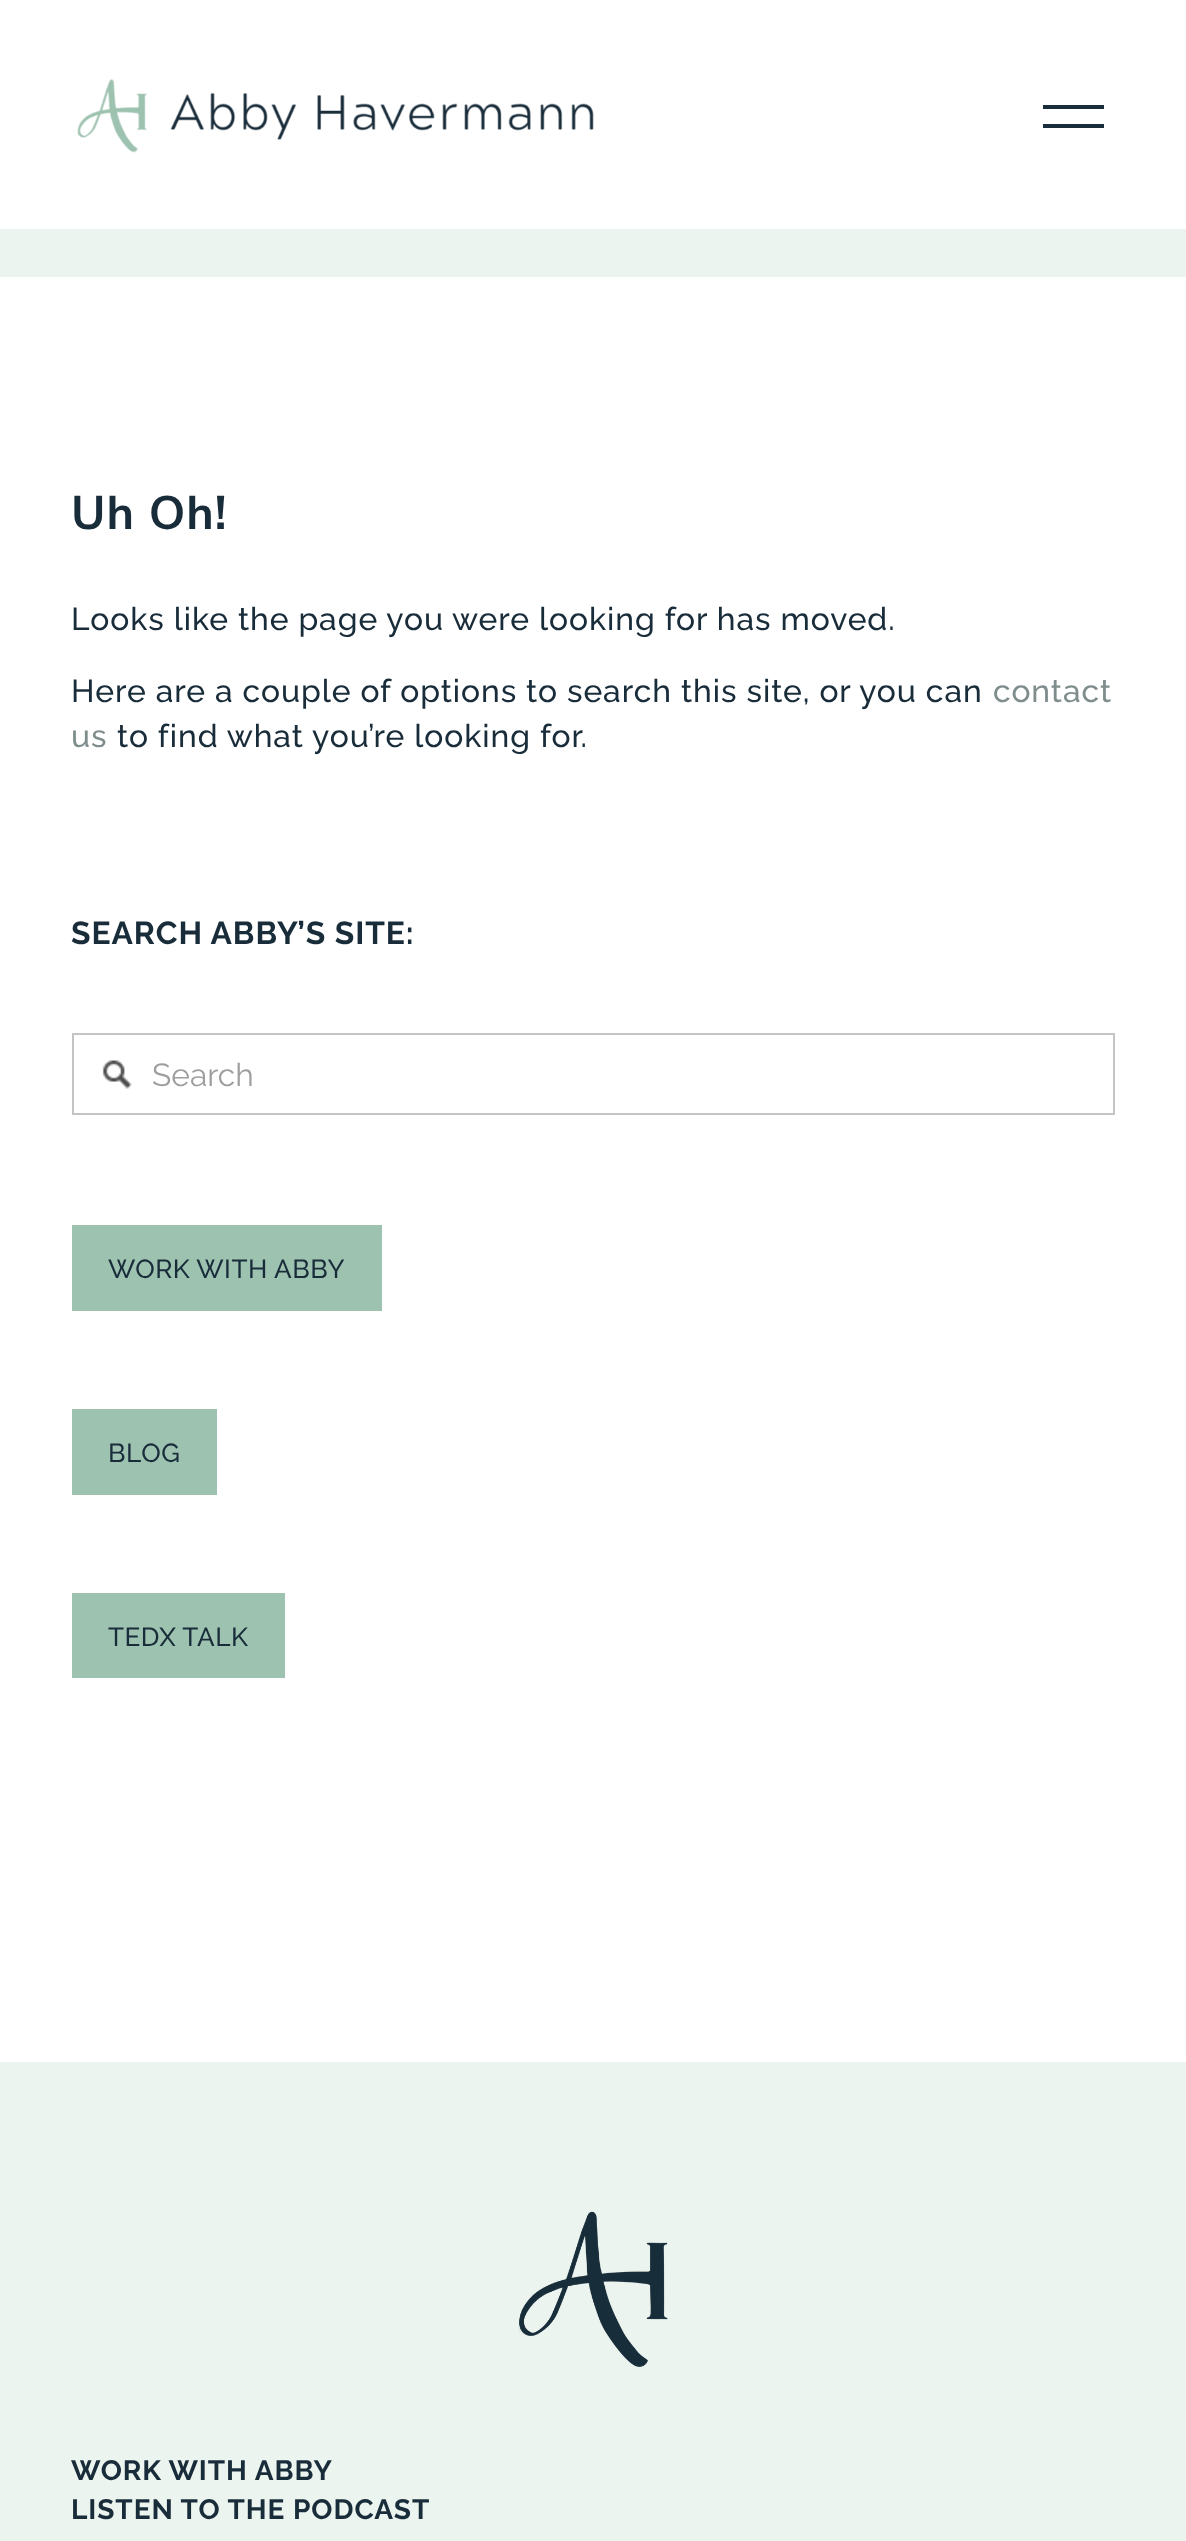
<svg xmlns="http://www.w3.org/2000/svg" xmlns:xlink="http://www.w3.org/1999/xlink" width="1186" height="2541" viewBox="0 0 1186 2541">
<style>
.cls-1{font:bold 47px Nunito Sans;letter-spacing:1px;fill:#192c3a}
.cls-2{font:500 31.75px Raleway;letter-spacing:0.95px;fill:#192c3a}
.cls-3{font:500 31.75px Raleway;letter-spacing:0.95px;fill:#7f8e8d}
.cls-4{font:bold 31.75px Raleway;letter-spacing:0.95px;fill:#192c3a}
.cls-5{font:31.75px Raleway;fill:#9e9e9e}
.cls-6{font:500 26.1px Raleway;letter-spacing:0.5px;fill:#192c3a}
.cls-7{font:bold 28px Raleway;letter-spacing:0.95px;fill:#192c3a}
</style>
<rect width="100%" height="100%" fill="#ffffff"/>
<image xlink:href="image0.png" x="77" y="79" width="517" height="74"/>
<rect fill="#192c3a" x="1043" y="105" width="61" height="4"/>
<rect fill="#192c3a" x="1043" y="124" width="61" height="4"/>
<rect fill="#ecf4f0" x="0" y="229" width="1186" height="48"/>
<image xlink:href="image1.png" x="102" y="1060" width="30" height="29"/>
<rect fill="none" stroke="#c4c4c4" stroke-width="2" x="73" y="1034" width="1041" height="80"/>
<rect fill="#9dc3b0" x="72" y="1225" width="310" height="86"/>
<rect fill="#9dc3b0" x="72" y="1409" width="145" height="86"/>
<rect fill="#9dc3b0" x="72" y="1593" width="213" height="85"/>
<rect fill="#ecf4f0" x="0" y="2062" width="1186" height="479"/>
<image xlink:href="image2.png" x="518" y="2211" width="150" height="156"/>
<text class="cls-1" x="71" y="529">Uh Oh!</text>
<text class="cls-2" x="71" y="630">Looks like the page you were looking for has moved.</text>
<text class="cls-2" x="71" y="702">Here are a couple of options to search this site, or you can</text>
<text class="cls-3" x="993" y="702">contact</text>
<text class="cls-3" x="71" y="747">us</text>
<text class="cls-2" x="117" y="747">to find what you’re looking for.</text>
<text class="cls-4" x="71" y="944">SEARCH ABBY’S SITE:</text>
<text class="cls-5" x="152" y="1086">Search</text>
<text class="cls-6" x="108" y="1278">WORK WITH ABBY</text>
<text class="cls-6" x="108" y="1462">BLOG</text>
<text class="cls-6" x="108" y="1646">TEDX TALK</text>
<text class="cls-7"><tspan x="71" y="2480">WORK WITH ABBY</tspan><tspan x="71" y="2519">LISTEN TO THE PODCAST</tspan></text>
</svg>
